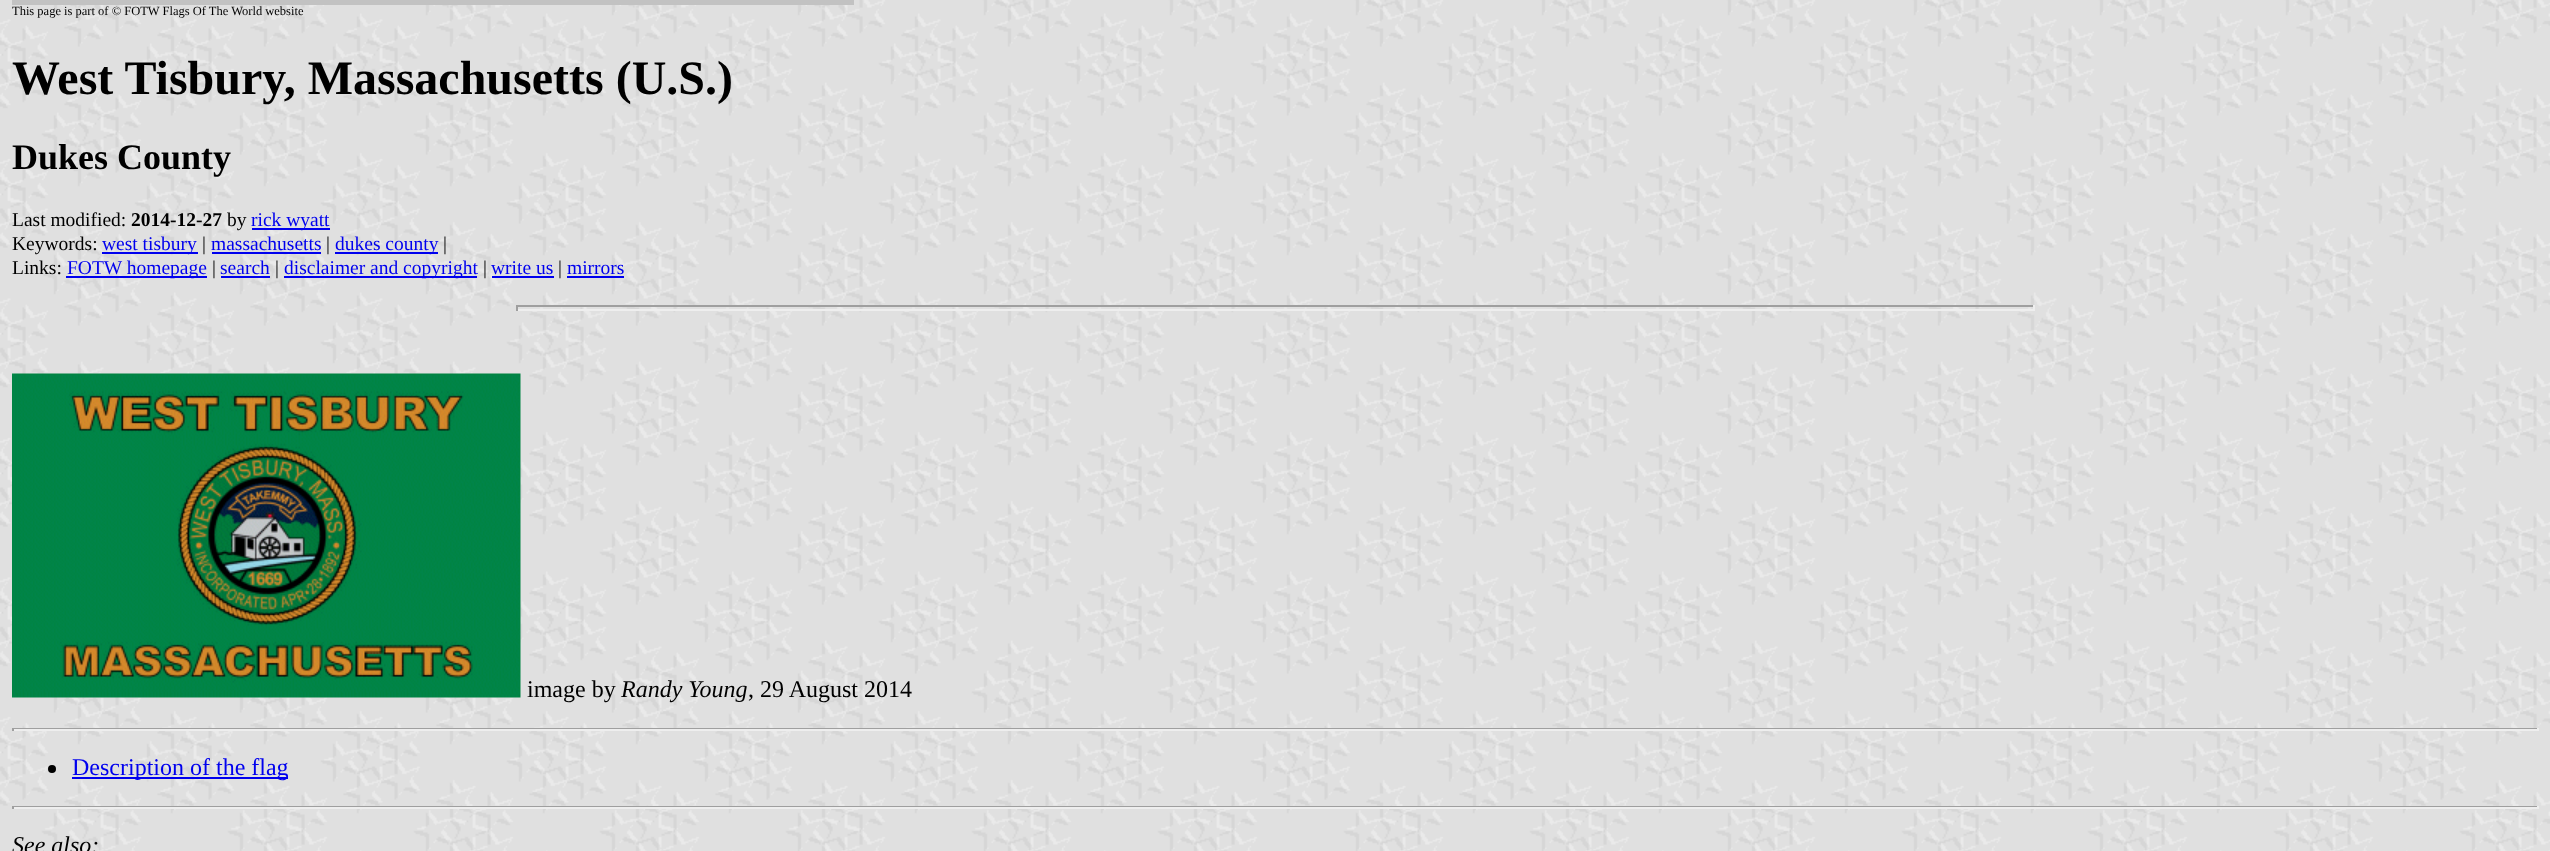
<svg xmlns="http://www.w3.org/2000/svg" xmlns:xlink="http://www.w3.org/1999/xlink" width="2550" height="851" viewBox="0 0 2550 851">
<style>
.cls-1{font:12.5px Liberation Serif;fill:#000000}
.cls-2{font:bold 48px Liberation Serif;fill:#000000}
.cls-3{font:bold 36px Liberation Serif;fill:#000000}
.cls-4{font:19.5px Liberation Serif;fill:#000000}
.cls-5{font:bold 19.5px Liberation Serif;fill:#000000}
.cls-6{font:19.5px Liberation Serif;fill:#0000ee}
.cls-7{font:24px Liberation Serif;fill:#000000}
.cls-8{font:italic 24px Liberation Serif;fill:#000000}
.cls-9{font:24px Liberation Serif;fill:#0000ee}
</style>
<rect width="100%" height="100%" fill="#ffffff"/>
<image xlink:href="image0.png" x="0" y="0" width="2550" height="851"/>
<rect fill="#c2c2c2" x="12" y="0" width="842" height="5"/>
<rect fill="#0000ee" x="252" y="228" width="78" height="2"/>
<rect fill="#0000ee" x="102" y="252" width="96" height="2"/>
<rect fill="#0000ee" x="212" y="252" width="109" height="2"/>
<rect fill="#0000ee" x="335" y="252" width="103" height="2"/>
<rect fill="#0000ee" x="66" y="276" width="141" height="2"/>
<rect fill="#0000ee" x="221" y="276" width="49" height="2"/>
<rect fill="#0000ee" x="284" y="276" width="193" height="2"/>
<rect fill="#0000ee" x="492" y="276" width="62" height="2"/>
<rect fill="#0000ee" x="567" y="276" width="57" height="2"/>
<rect fill="#9f9f9f" x="516" y="305" width="1518" height="2"/>
<rect fill="#eeeeee" x="2033" y="305" width="2" height="6"/>
<rect fill="#eeeeee" x="516" y="309" width="1518" height="2"/>
<rect fill="#9f9f9f" x="516" y="305" width="2" height="6"/>
<image xlink:href="image1.png" x="12" y="373" width="509" height="325"/>
<rect fill="#9f9f9f" x="12" y="728" width="2526" height="1"/>
<rect fill="#eeeeee" x="2537" y="728" width="2" height="3"/>
<rect fill="#eeeeee" x="12" y="729" width="2526" height="2"/>
<rect fill="#9f9f9f" x="12" y="728" width="2" height="3"/>
<circle fill="#000000" cx="52" cy="769" r="4"/>
<rect fill="#0000ee" x="72" y="777" width="216" height="2"/>
<rect fill="#9f9f9f" x="12" y="806" width="2526" height="1"/>
<rect fill="#eeeeee" x="2537" y="806" width="2" height="3"/>
<rect fill="#eeeeee" x="12" y="807" width="2526" height="2"/>
<rect fill="#9f9f9f" x="12" y="806" width="2" height="3"/>
<text class="cls-1" x="12" y="15">This page is part of © FOTW Flags Of The World website</text>
<text class="cls-2" x="12" y="94">West Tisbury, Massachusetts (U.S.)</text>
<text class="cls-3" x="12" y="169">Dukes County</text>
<text class="cls-4" x="12" y="226">Last modified:</text>
<text class="cls-5" x="131" y="226">2014-12-27</text>
<text class="cls-4" x="227" y="226">by</text>
<text class="cls-6" x="251" y="226">rick wyatt</text>
<text class="cls-4" x="12" y="250">Keywords:</text>
<text class="cls-6" x="102" y="250">west tisbury</text>
<text class="cls-4" x="202" y="250">|</text>
<text class="cls-6" x="211" y="250">massachusetts</text>
<text class="cls-4" x="326" y="250">|</text>
<text class="cls-6" x="335" y="250">dukes county</text>
<text class="cls-4" x="443" y="250">|</text>
<text class="cls-4" x="12" y="274">Links:</text>
<text class="cls-6" x="67" y="274">FOTW homepage</text>
<text class="cls-4" x="212" y="274">|</text>
<text class="cls-6" x="220" y="274">search</text>
<text class="cls-4" x="275" y="274">|</text>
<text class="cls-6" x="284" y="274">disclaimer and copyright</text>
<text class="cls-4" x="483" y="274">|</text>
<text class="cls-6" x="491" y="274">write us</text>
<text class="cls-4" x="558" y="274">|</text>
<text class="cls-6" x="567" y="274">mirrors</text>
<text class="cls-7" x="527" y="697">image by</text>
<text class="cls-8" x="621" y="697">Randy Young</text>
<text class="cls-7" x="748" y="697">, 29 August 2014</text>
<text class="cls-9" x="72" y="775">Description of the flag</text>
<text class="cls-8" x="12" y="853">See also:</text>
</svg>
